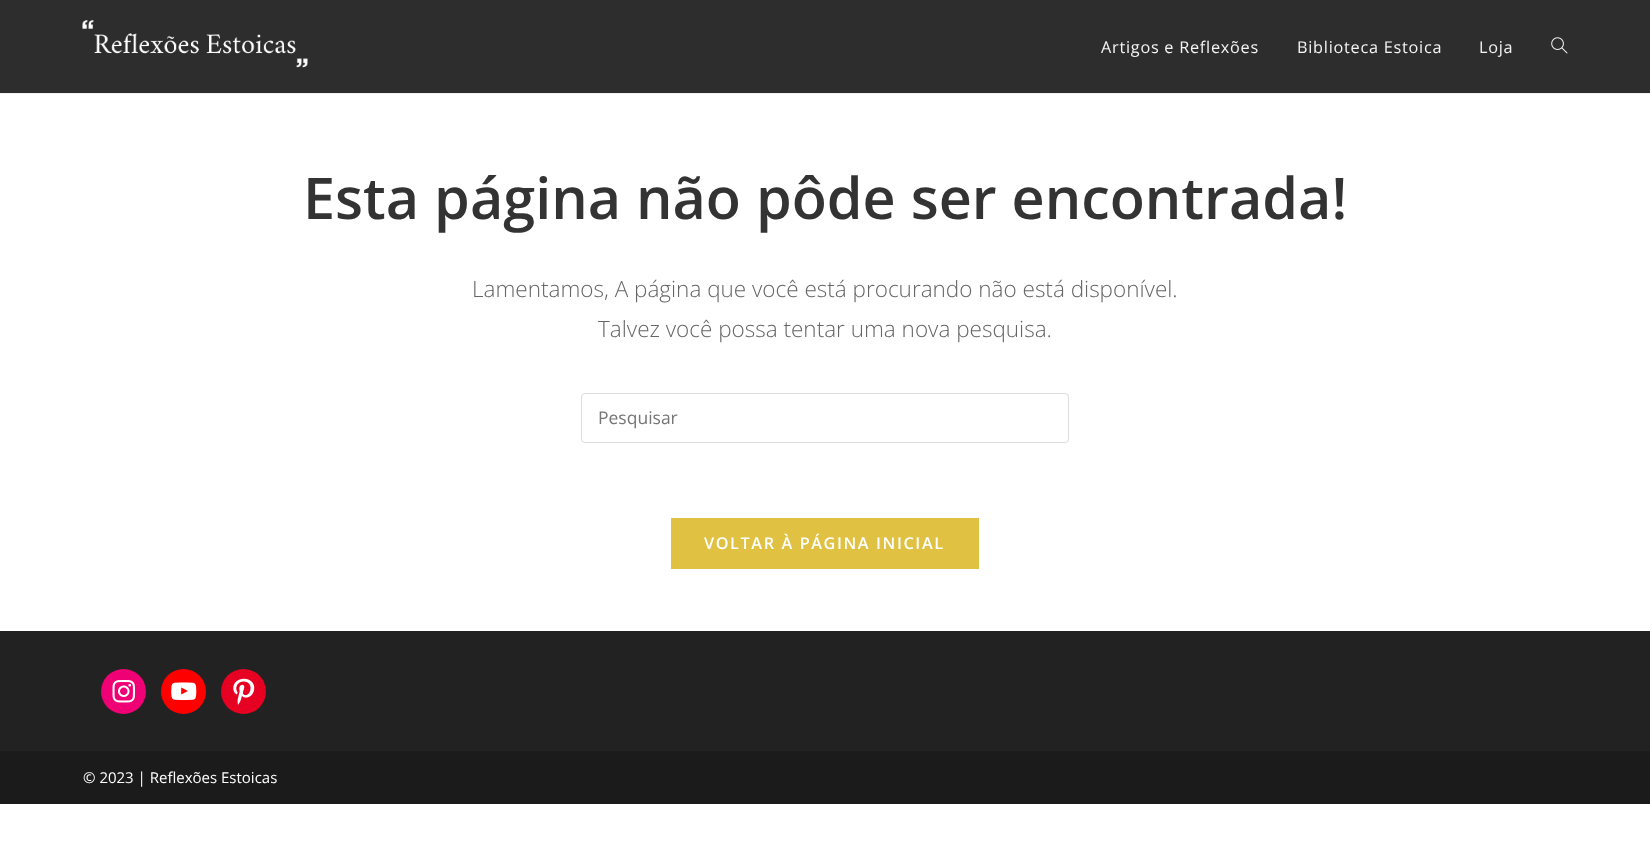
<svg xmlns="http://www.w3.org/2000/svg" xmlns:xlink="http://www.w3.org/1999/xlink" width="1650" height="853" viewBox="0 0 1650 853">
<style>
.cls-1{font:16.25px Open Sans;letter-spacing:0.75px;fill:#f4f4f4}
.cls-2{font:600 57.5px Open Sans;fill:#333333}
.cls-3{font:300 22.5px Open Sans;fill:#666666}
.cls-4{font:17.5px Open Sans;fill:#757575}
.cls-5{font:600 16.25px Open Sans;letter-spacing:1.6px;fill:#ffffff}
.cls-6{font:15px Open Sans;fill:#ffffff}
</style>
<rect width="100%" height="100%" fill="#ffffff"/>
<rect fill="#2d2d2d" x="0" y="0" width="1650" height="93"/>
<rect fill="#f1f1f1" x="0" y="93" width="1650" height="1"/>
<image xlink:href="image0.png" x="82" y="20" width="226" height="48"/>
<image xlink:href="image1.png" x="1551" y="37" width="17" height="17"/>
<rect fill="none" stroke="#dddddd" x="581.5" y="393.5" width="487" height="49" rx="3.5"/>
<rect fill="#e0c141" x="671" y="518" width="308" height="51"/>
<rect fill="#222222" x="0" y="631" width="1650" height="120"/>
<circle fill="#f00075" cx="123.5" cy="691.5" r="22.5"/>
<image xlink:href="image2.png" x="112" y="680" width="23" height="23"/>
<circle fill="#ff0000" cx="183.5" cy="691.5" r="22.5"/>
<image xlink:href="image3.png" x="171" y="682" width="26" height="19"/>
<circle fill="#e60122" cx="243.5" cy="691.5" r="22.5"/>
<image xlink:href="image4.png" x="233" y="678" width="22" height="27"/>
<rect fill="#1b1b1b" x="0" y="751" width="1650" height="53"/>
<text class="cls-1" x="1101" y="53">Artigos e Reflexões</text>
<text class="cls-1" x="1297" y="53">Biblioteca Estoica</text>
<text class="cls-1" x="1479" y="53">Loja</text>
<text class="cls-2" x="303" y="219">Esta página não pôde ser encontrada!</text>
<text class="cls-3" x="472" y="297">Lamentamos, A página que você está procurando não está disponível.</text>
<text class="cls-3" x="598" y="337">Talvez você possa tentar uma nova pesquisa.</text>
<text class="cls-4" x="598" y="424">Pesquisar</text>
<text class="cls-5" x="704" y="549">VOLTAR À PÁGINA INICIAL</text>
<text class="cls-6" x="83" y="783">© 2023 | Reflexões Estoicas</text>
</svg>
